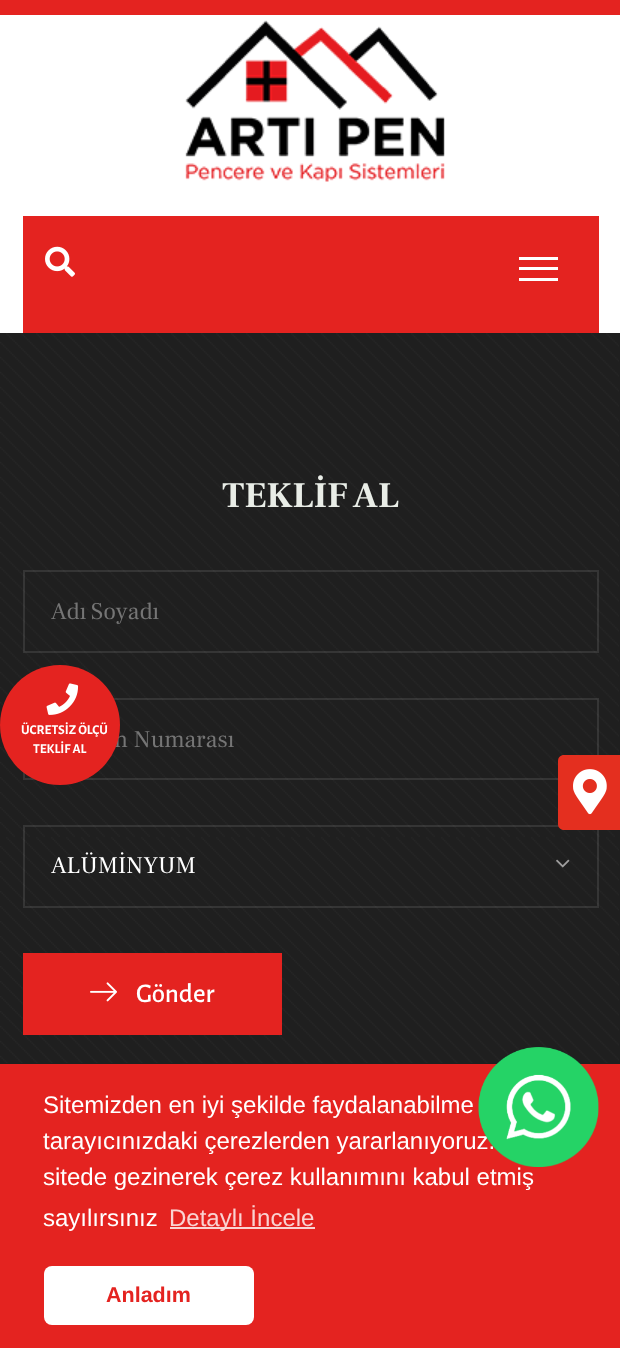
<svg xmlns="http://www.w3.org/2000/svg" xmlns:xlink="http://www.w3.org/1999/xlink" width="620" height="1348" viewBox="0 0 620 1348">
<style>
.cls-1{font:bold 36px Frank Ruhl Libre;fill:#e9ede7}
.cls-2{font:24px Frank Ruhl Libre;fill:#757575}
.cls-3{font:24px Frank Ruhl Libre;fill:#ffffff}
.cls-4{font:500 27px Alegreya Sans;fill:#ffffff}
.cls-5{font:bold 13.5px Alegreya Sans;fill:#ffffff}
.cls-6{font:24px Liberation Sans;fill:#ffffff}
.cls-7{font:24px Liberation Sans;fill:#fad3d2}
.cls-8{font:bold 21.5px Liberation Sans;fill:#e42320}
</style>
<rect width="100%" height="100%" fill="#ffffff"/>
<rect fill="#e42320" x="0" y="0" width="620" height="15"/>
<image xlink:href="image0.png" x="185" y="20" width="260" height="162"/>
<rect fill="#e42320" x="23" y="216" width="576" height="117"/>
<image xlink:href="image1.png" x="45" y="246" width="30" height="31"/>
<rect fill="#ffffff" x="519" y="257" width="39" height="3"/>
<rect fill="#ffffff" x="519" y="267" width="39" height="3"/>
<rect fill="#ffffff" x="519" y="278" width="39" height="3"/>
<rect fill="#1f1f1f" x="0" y="333" width="620" height="731"/>
<image xlink:href="image2.png" x="0" y="333" width="619" height="730"/>
<rect fill="none" stroke="#ffffff" stroke-opacity="0.1" stroke-width="2" x="24" y="571" width="574" height="81"/>
<rect fill="none" stroke="#ffffff" stroke-opacity="0.1" stroke-width="2" x="24" y="699" width="574" height="80"/>
<rect fill="none" stroke="#ffffff" stroke-opacity="0.1" stroke-width="2" x="24" y="826" width="574" height="81"/>
<image xlink:href="image3.png" x="556" y="859" width="14" height="9"/>
<rect fill="#e42320" x="23" y="953" width="259" height="82"/>
<image xlink:href="image4.png" x="90" y="982" width="27" height="20"/>
<path fill="#e42f1f" d="M564 755H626V830H564C560.5 830 558 827.5 558 824V761C558 757.5 560.5 755 564 755Z"/>
<image xlink:href="image7.png" x="573" y="769" width="34" height="46"/>
<rect fill="#e42320" x="0" y="1064" width="620" height="284"/>
<rect fill="#fad3d2" x="170" y="1227" width="145" height="2"/>
<rect fill="#ffffff" x="44" y="1266" width="210" height="59" rx="8"/>
<text class="cls-1" x="222" y="507">TEKLİF AL</text>
<text class="cls-2" x="51" y="619" word-spacing="-1">Adı Soyadı</text>
<text class="cls-2" x="114" y="747">n Numarası</text>
<text class="cls-3" x="51" y="873">ALÜMİNYUM</text>
<text class="cls-4" x="136" y="1002">Gönder</text>
<circle fill="#e42320" cx="60" cy="725" r="60"/>
<image xlink:href="image5.png" x="46" y="683" width="33" height="32"/>
<text class="cls-5" x="21" y="734">ÜCRETSİZ ÖLÇÜ</text>
<text class="cls-5" x="33" y="753">TEKLİF AL</text>
<text class="cls-6"><tspan x="43" y="1113">Sitemizden en iyi şekilde faydalanabilme</tspan><tspan x="43" y="1149">tarayıcınızdaki çerezlerden yararlanıyoruz.</tspan></text>
<image xlink:href="image6.png" x="478" y="1047" width="121" height="120"/>
<text class="cls-6"><tspan x="43" y="1185">sitede gezinerek çerez kullanımını kabul etmiş</tspan><tspan x="43" y="1226">sayılırsınız</tspan></text>
<text class="cls-7" x="169" y="1226">Detaylı İncele</text>
<text class="cls-8" x="106" y="1302">Anladım</text>
</svg>
